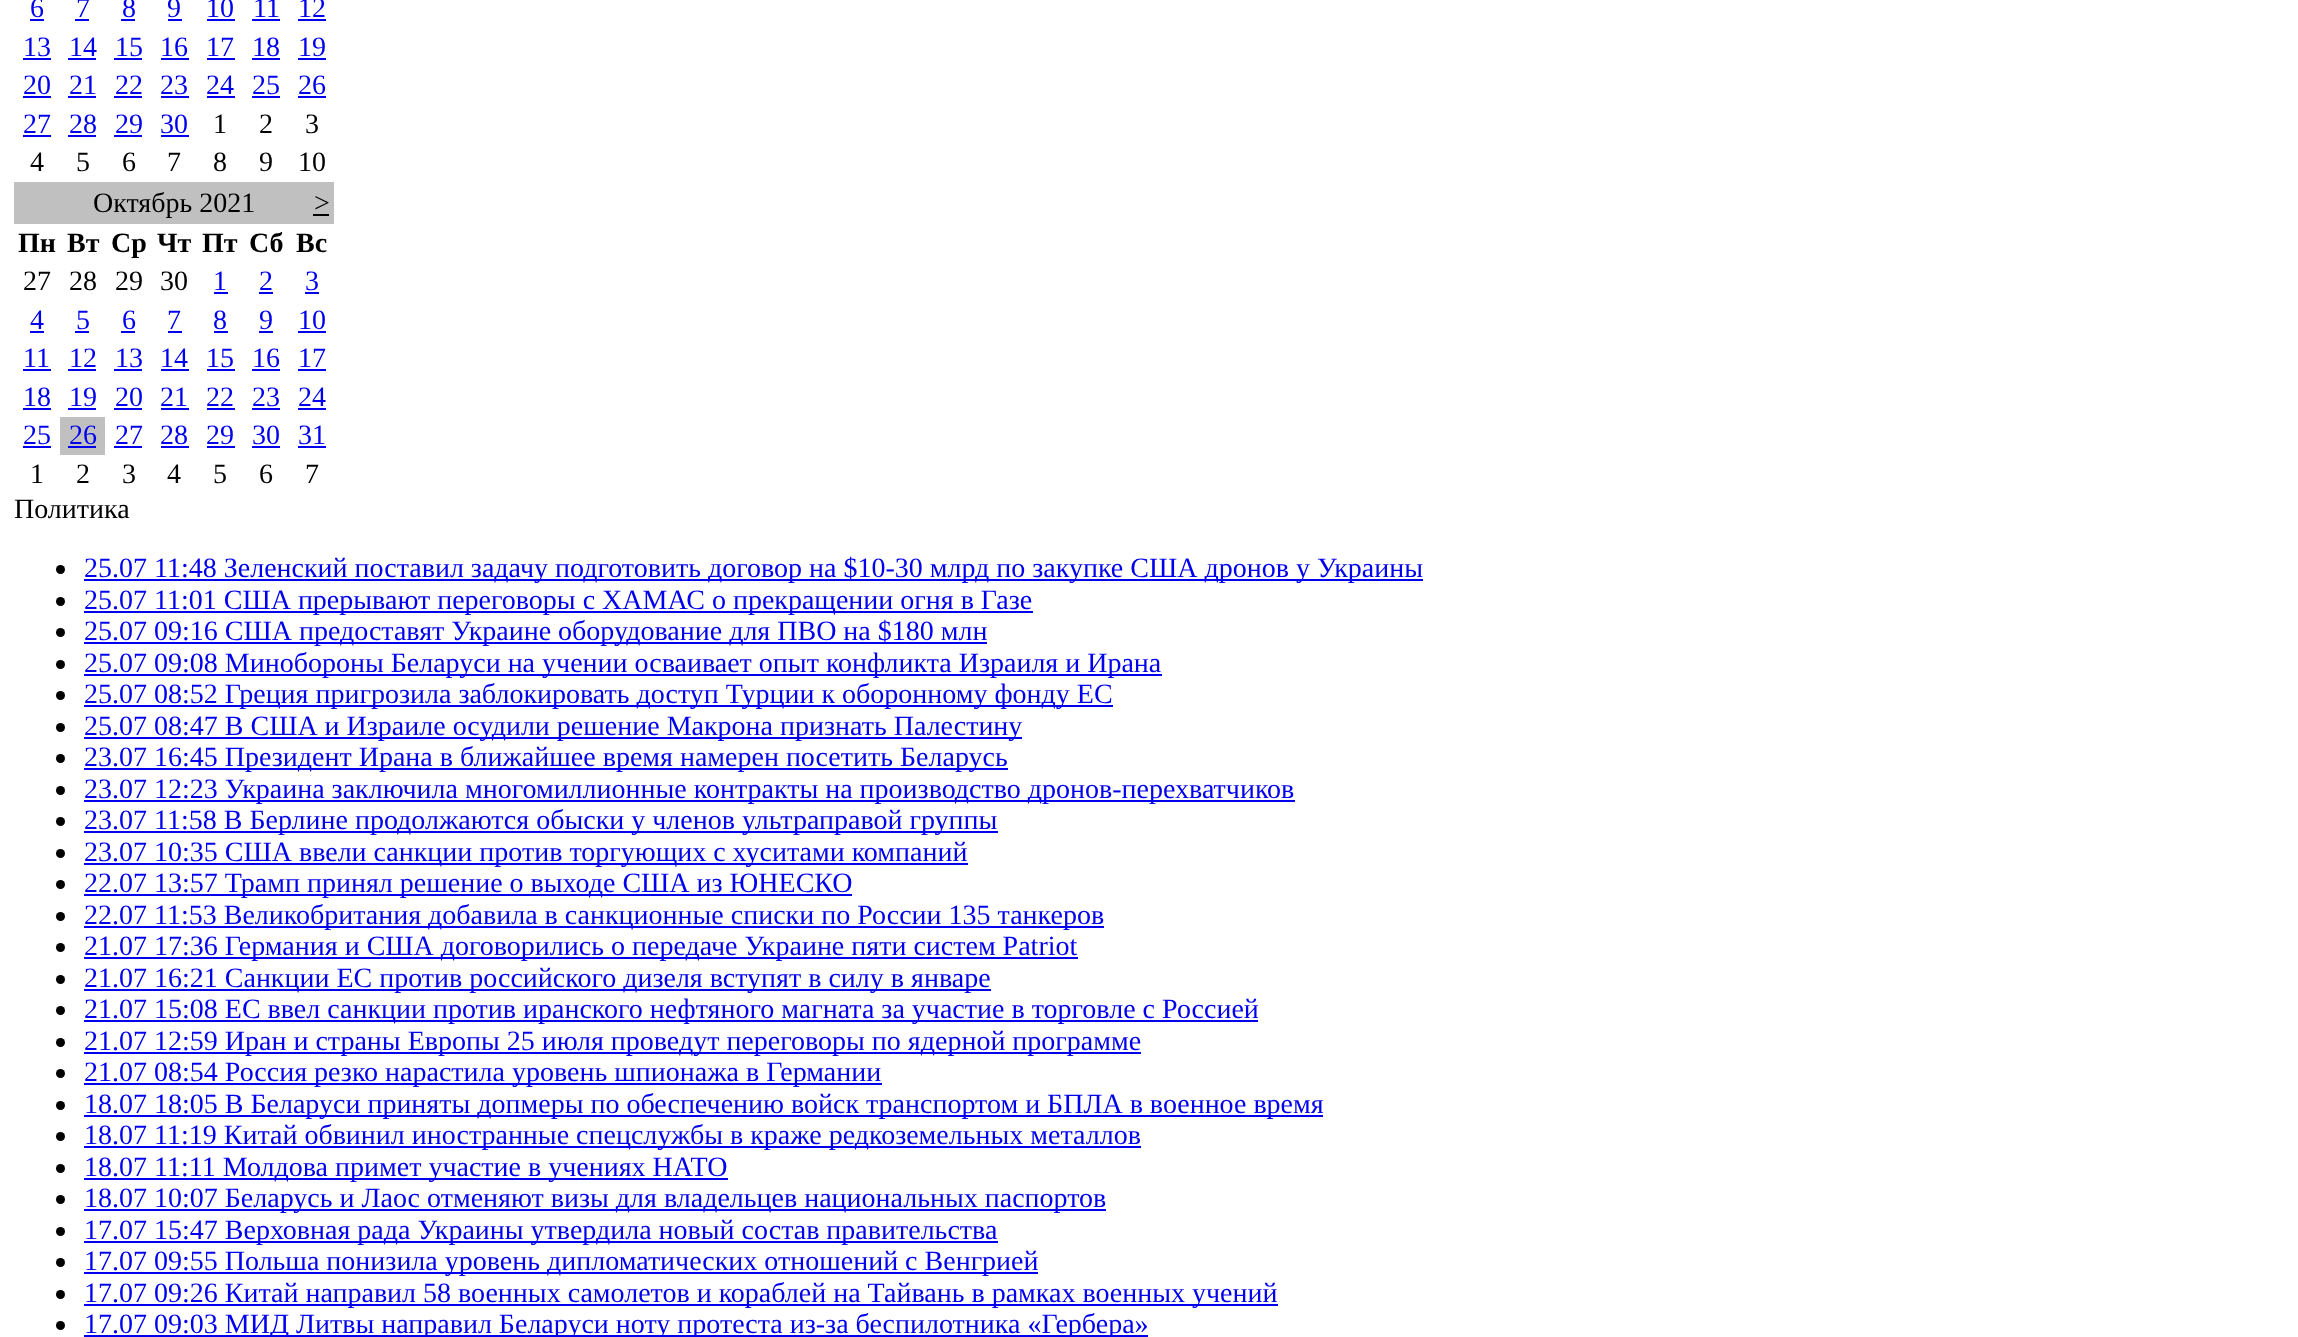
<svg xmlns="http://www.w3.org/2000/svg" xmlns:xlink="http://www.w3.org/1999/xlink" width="2298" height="1337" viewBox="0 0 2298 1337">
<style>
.cls-1{font:28px Liberation Serif;fill:#0000ee}
.cls-2{font:28px Liberation Serif;fill:#000000}
.cls-3{font:bold 28px Liberation Serif;fill:#000000}
</style>
<rect width="100%" height="100%" fill="#ffffff"/>
<rect fill="#0000ee" x="30" y="19" width="14" height="2"/>
<rect fill="#0000ee" x="75" y="19" width="14" height="2"/>
<rect fill="#0000ee" x="121" y="19" width="14" height="2"/>
<rect fill="#0000ee" x="168" y="19" width="14" height="2"/>
<rect fill="#0000ee" x="207" y="19" width="28" height="2"/>
<rect fill="#0000ee" x="252" y="19" width="28" height="2"/>
<rect fill="#0000ee" x="298" y="19" width="28" height="2"/>
<rect fill="#0000ee" x="23" y="58" width="28" height="2"/>
<rect fill="#0000ee" x="68" y="58" width="28" height="2"/>
<rect fill="#0000ee" x="114" y="58" width="28" height="2"/>
<rect fill="#0000ee" x="161" y="58" width="28" height="2"/>
<rect fill="#0000ee" x="207" y="58" width="28" height="2"/>
<rect fill="#0000ee" x="252" y="58" width="28" height="2"/>
<rect fill="#0000ee" x="298" y="58" width="28" height="2"/>
<rect fill="#0000ee" x="23" y="96" width="28" height="2"/>
<rect fill="#0000ee" x="68" y="96" width="28" height="2"/>
<rect fill="#0000ee" x="114" y="96" width="28" height="2"/>
<rect fill="#0000ee" x="161" y="96" width="28" height="2"/>
<rect fill="#0000ee" x="207" y="96" width="28" height="2"/>
<rect fill="#0000ee" x="252" y="96" width="28" height="2"/>
<rect fill="#0000ee" x="298" y="96" width="28" height="2"/>
<rect fill="#0000ee" x="23" y="135" width="28" height="2"/>
<rect fill="#0000ee" x="68" y="135" width="28" height="2"/>
<rect fill="#0000ee" x="114" y="135" width="28" height="2"/>
<rect fill="#0000ee" x="161" y="135" width="28" height="2"/>
<rect fill="#c0c0c0" x="14" y="182" width="320" height="42"/>
<rect fill="#000000" x="313" y="214" width="16" height="2"/>
<rect fill="#0000ee" x="214" y="292" width="14" height="2"/>
<rect fill="#0000ee" x="259" y="292" width="14" height="2"/>
<rect fill="#0000ee" x="305" y="292" width="14" height="2"/>
<rect fill="#0000ee" x="30" y="331" width="14" height="2"/>
<rect fill="#0000ee" x="75" y="331" width="14" height="2"/>
<rect fill="#0000ee" x="121" y="331" width="14" height="2"/>
<rect fill="#0000ee" x="168" y="331" width="14" height="2"/>
<rect fill="#0000ee" x="214" y="331" width="14" height="2"/>
<rect fill="#0000ee" x="259" y="331" width="14" height="2"/>
<rect fill="#0000ee" x="298" y="331" width="28" height="2"/>
<rect fill="#0000ee" x="23" y="369" width="28" height="2"/>
<rect fill="#0000ee" x="68" y="369" width="28" height="2"/>
<rect fill="#0000ee" x="114" y="369" width="28" height="2"/>
<rect fill="#0000ee" x="161" y="369" width="28" height="2"/>
<rect fill="#0000ee" x="207" y="369" width="28" height="2"/>
<rect fill="#0000ee" x="252" y="369" width="28" height="2"/>
<rect fill="#0000ee" x="298" y="369" width="28" height="2"/>
<rect fill="#0000ee" x="23" y="408" width="28" height="2"/>
<rect fill="#0000ee" x="68" y="408" width="28" height="2"/>
<rect fill="#0000ee" x="114" y="408" width="28" height="2"/>
<rect fill="#0000ee" x="161" y="408" width="28" height="2"/>
<rect fill="#0000ee" x="207" y="408" width="28" height="2"/>
<rect fill="#0000ee" x="252" y="408" width="28" height="2"/>
<rect fill="#0000ee" x="298" y="408" width="28" height="2"/>
<rect fill="#0000ee" x="23" y="446" width="28" height="2"/>
<rect fill="#c0c0c0" x="60" y="417" width="45" height="38"/>
<rect fill="#0000ee" x="68" y="446" width="28" height="2"/>
<rect fill="#0000ee" x="114" y="446" width="28" height="2"/>
<rect fill="#0000ee" x="161" y="446" width="28" height="2"/>
<rect fill="#0000ee" x="207" y="446" width="28" height="2"/>
<rect fill="#0000ee" x="252" y="446" width="28" height="2"/>
<rect fill="#0000ee" x="298" y="446" width="28" height="2"/>
<circle fill="#000000" cx="60.5" cy="569.5" r="4.5"/>
<rect fill="#0000ee" x="84" y="579" width="1339" height="2"/>
<circle fill="#000000" cx="60.5" cy="601.5" r="4.5"/>
<rect fill="#0000ee" x="84" y="611" width="949" height="2"/>
<circle fill="#000000" cx="60.5" cy="632.5" r="4.5"/>
<rect fill="#0000ee" x="84" y="642" width="903" height="2"/>
<circle fill="#000000" cx="60.5" cy="664.5" r="4.5"/>
<rect fill="#0000ee" x="84" y="674" width="1078" height="2"/>
<circle fill="#000000" cx="60.5" cy="695.5" r="4.5"/>
<rect fill="#0000ee" x="84" y="705" width="1029" height="2"/>
<circle fill="#000000" cx="60.5" cy="727.5" r="4.5"/>
<rect fill="#0000ee" x="84" y="737" width="938" height="2"/>
<circle fill="#000000" cx="60.5" cy="758.5" r="4.5"/>
<rect fill="#0000ee" x="84" y="768" width="924" height="2"/>
<circle fill="#000000" cx="60.5" cy="790.5" r="4.5"/>
<rect fill="#0000ee" x="84" y="800" width="1211" height="2"/>
<circle fill="#000000" cx="60.5" cy="821.5" r="4.5"/>
<rect fill="#0000ee" x="84" y="831" width="914" height="2"/>
<circle fill="#000000" cx="60.5" cy="853.5" r="4.5"/>
<rect fill="#0000ee" x="84" y="863" width="884" height="2"/>
<circle fill="#000000" cx="60.5" cy="884.5" r="4.5"/>
<rect fill="#0000ee" x="84" y="894" width="768" height="2"/>
<circle fill="#000000" cx="60.5" cy="916.5" r="4.5"/>
<rect fill="#0000ee" x="84" y="926" width="1020" height="2"/>
<circle fill="#000000" cx="60.5" cy="947.5" r="4.5"/>
<rect fill="#0000ee" x="84" y="957" width="994" height="2"/>
<circle fill="#000000" cx="60.5" cy="979.5" r="4.5"/>
<rect fill="#0000ee" x="84" y="989" width="907" height="2"/>
<circle fill="#000000" cx="60.5" cy="1010.5" r="4.5"/>
<rect fill="#0000ee" x="84" y="1020" width="1174" height="2"/>
<circle fill="#000000" cx="60.5" cy="1042.5" r="4.5"/>
<rect fill="#0000ee" x="84" y="1052" width="1057" height="2"/>
<circle fill="#000000" cx="60.5" cy="1073.5" r="4.5"/>
<rect fill="#0000ee" x="84" y="1083" width="798" height="2"/>
<circle fill="#000000" cx="60.5" cy="1105.5" r="4.5"/>
<rect fill="#0000ee" x="84" y="1115" width="1239" height="2"/>
<circle fill="#000000" cx="60.5" cy="1136.5" r="4.5"/>
<rect fill="#0000ee" x="84" y="1146" width="1057" height="2"/>
<circle fill="#000000" cx="60.5" cy="1168.5" r="4.5"/>
<rect fill="#0000ee" x="84" y="1178" width="644" height="2"/>
<circle fill="#000000" cx="60.5" cy="1199.5" r="4.5"/>
<rect fill="#0000ee" x="84" y="1209" width="1022" height="2"/>
<circle fill="#000000" cx="60.5" cy="1231.5" r="4.5"/>
<rect fill="#0000ee" x="84" y="1241" width="914" height="2"/>
<circle fill="#000000" cx="60.5" cy="1262.5" r="4.5"/>
<rect fill="#0000ee" x="84" y="1272" width="954" height="2"/>
<circle fill="#000000" cx="60.5" cy="1294.5" r="4.5"/>
<rect fill="#0000ee" x="84" y="1304" width="1194" height="2"/>
<circle fill="#000000" cx="60.5" cy="1325.5" r="4.5"/>
<rect fill="#0000ee" x="84" y="1335" width="1064" height="2"/>
<text class="cls-1" x="30" y="17">6</text>
<text class="cls-1" x="76" y="17">7</text>
<text class="cls-1" x="122" y="17">8</text>
<text class="cls-1" x="167" y="17">9</text>
<text class="cls-1" x="206" y="17">10</text>
<text class="cls-1" x="253" y="17">11</text>
<text class="cls-1" x="298" y="17">12</text>
<text class="cls-1" x="23" y="56">13</text>
<text class="cls-1" x="69" y="56">14</text>
<text class="cls-1" x="115" y="56">15</text>
<text class="cls-1" x="160" y="56">16</text>
<text class="cls-1" x="206" y="56">17</text>
<text class="cls-1" x="252" y="56">18</text>
<text class="cls-1" x="298" y="56">19</text>
<text class="cls-1" x="23" y="94">20</text>
<text class="cls-1" x="69" y="94">21</text>
<text class="cls-1" x="115" y="94">22</text>
<text class="cls-1" x="160" y="94">23</text>
<text class="cls-1" x="206" y="94">24</text>
<text class="cls-1" x="252" y="94">25</text>
<text class="cls-1" x="298" y="94">26</text>
<text class="cls-1" x="23" y="133">27</text>
<text class="cls-1" x="69" y="133">28</text>
<text class="cls-1" x="115" y="133">29</text>
<text class="cls-1" x="160" y="133">30</text>
<text class="cls-2" x="213" y="133">1</text>
<text class="cls-2" x="259" y="133">2</text>
<text class="cls-2" x="305" y="133">3</text>
<text class="cls-2" x="30" y="171">4</text>
<text class="cls-2" x="76" y="171">5</text>
<text class="cls-2" x="122" y="171">6</text>
<text class="cls-2" x="167" y="171">7</text>
<text class="cls-2" x="213" y="171">8</text>
<text class="cls-2" x="259" y="171">9</text>
<text class="cls-2" x="298" y="171">10</text>
<text class="cls-2" x="93" y="212">Октябрь 2021</text>
<text class="cls-2" x="314" y="212">&gt;</text>
<text class="cls-3" x="18" y="252">Пн</text>
<text class="cls-3" x="67" y="252">Вт</text>
<text class="cls-3" x="111" y="252">Ср</text>
<text class="cls-3" x="157" y="252">Чт</text>
<text class="cls-3" x="202" y="252">Пт</text>
<text class="cls-3" x="249" y="252">Сб</text>
<text class="cls-3" x="296" y="252">Вс</text>
<text class="cls-2" x="23" y="290">27</text>
<text class="cls-2" x="69" y="290">28</text>
<text class="cls-2" x="115" y="290">29</text>
<text class="cls-2" x="160" y="290">30</text>
<text class="cls-1" x="213" y="290">1</text>
<text class="cls-1" x="259" y="290">2</text>
<text class="cls-1" x="305" y="290">3</text>
<text class="cls-1" x="30" y="329">4</text>
<text class="cls-1" x="76" y="329">5</text>
<text class="cls-1" x="122" y="329">6</text>
<text class="cls-1" x="167" y="329">7</text>
<text class="cls-1" x="213" y="329">8</text>
<text class="cls-1" x="259" y="329">9</text>
<text class="cls-1" x="298" y="329">10</text>
<text class="cls-1" x="23" y="367">11</text>
<text class="cls-1" x="69" y="367">12</text>
<text class="cls-1" x="115" y="367">13</text>
<text class="cls-1" x="160" y="367">14</text>
<text class="cls-1" x="206" y="367">15</text>
<text class="cls-1" x="252" y="367">16</text>
<text class="cls-1" x="298" y="367">17</text>
<text class="cls-1" x="23" y="406">18</text>
<text class="cls-1" x="69" y="406">19</text>
<text class="cls-1" x="115" y="406">20</text>
<text class="cls-1" x="160" y="406">21</text>
<text class="cls-1" x="206" y="406">22</text>
<text class="cls-1" x="252" y="406">23</text>
<text class="cls-1" x="298" y="406">24</text>
<text class="cls-1" x="23" y="444">25</text>
<text class="cls-1" x="69" y="444">26</text>
<text class="cls-1" x="115" y="444">27</text>
<text class="cls-1" x="160" y="444">28</text>
<text class="cls-1" x="206" y="444">29</text>
<text class="cls-1" x="252" y="444">30</text>
<text class="cls-1" x="298" y="444">31</text>
<text class="cls-2" x="30" y="483">1</text>
<text class="cls-2" x="76" y="483">2</text>
<text class="cls-2" x="122" y="483">3</text>
<text class="cls-2" x="167" y="483">4</text>
<text class="cls-2" x="213" y="483">5</text>
<text class="cls-2" x="259" y="483">6</text>
<text class="cls-2" x="305" y="483">7</text>
<text class="cls-2" x="14" y="518">Политика</text>
<text class="cls-1"><tspan x="84" y="577">25.07 11:48 Зеленский поставил задачу подготовить договор на $10-30 млрд по закупке США дронов у Украины</tspan><tspan x="84" y="609">25.07 11:01 США прерывают переговоры с ХАМАС о прекращении огня в Газе</tspan><tspan x="84" y="640">25.07 09:16 США предоставят Украине оборудование для ПВО на $180 млн</tspan><tspan x="84" y="672">25.07 09:08 Минобороны Беларуси на учении осваивает опыт конфликта Израиля и Ирана</tspan><tspan x="84" y="703">25.07 08:52 Греция пригрозила заблокировать доступ Турции к оборонному фонду ЕС</tspan><tspan x="84" y="735">25.07 08:47 В США и Израиле осудили решение Макрона признать Палестину</tspan><tspan x="84" y="766">23.07 16:45 Президент Ирана в ближайшее время намерен посетить Беларусь</tspan><tspan x="84" y="798">23.07 12:23 Украина заключила многомиллионные контракты на производство дронов-перехватчиков</tspan><tspan x="84" y="829">23.07 11:58 В Берлине продолжаются обыски у членов ультраправой группы</tspan><tspan x="84" y="861">23.07 10:35 США ввели санкции против торгующих с хуситами компаний</tspan><tspan x="84" y="892">22.07 13:57 Трамп принял решение о выходе США из ЮНЕСКО</tspan><tspan x="84" y="924">22.07 11:53 Великобритания добавила в санкционные списки по России 135 танкеров</tspan><tspan x="84" y="955">21.07 17:36 Германия и США договорились о передаче Украине пяти систем Patriot</tspan><tspan x="84" y="987">21.07 16:21 Санкции ЕС против российского дизеля вступят в силу в январе</tspan><tspan x="84" y="1018">21.07 15:08 ЕС ввел санкции против иранского нефтяного магната за участие в торговле с Россией</tspan><tspan x="84" y="1050">21.07 12:59 Иран и страны Европы 25 июля проведут переговоры по ядерной программе</tspan><tspan x="84" y="1081">21.07 08:54 Россия резко нарастила уровень шпионажа в Германии</tspan><tspan x="84" y="1113">18.07 18:05 В Беларуси приняты допмеры по обеспечению войск транспортом и БПЛА в военное время</tspan><tspan x="84" y="1144">18.07 11:19 Китай обвинил иностранные спецслужбы в краже редкоземельных металлов</tspan><tspan x="84" y="1176">18.07 11:11 Молдова примет участие в учениях НАТО</tspan><tspan x="84" y="1207">18.07 10:07 Беларусь и Лаос отменяют визы для владельцев национальных паспортов</tspan><tspan x="84" y="1239">17.07 15:47 Верховная рада Украины утвердила новый состав правительства</tspan><tspan x="84" y="1270">17.07 09:55 Польша понизила уровень дипломатических отношений с Венгрией</tspan><tspan x="84" y="1302">17.07 09:26 Китай направил 58 военных самолетов и кораблей на Тайвань в рамках военных учений</tspan><tspan x="84" y="1333">17.07 09:03 МИД Литвы направил Беларуси ноту протеста из-за беспилотника «Гербера»</tspan></text>
</svg>
